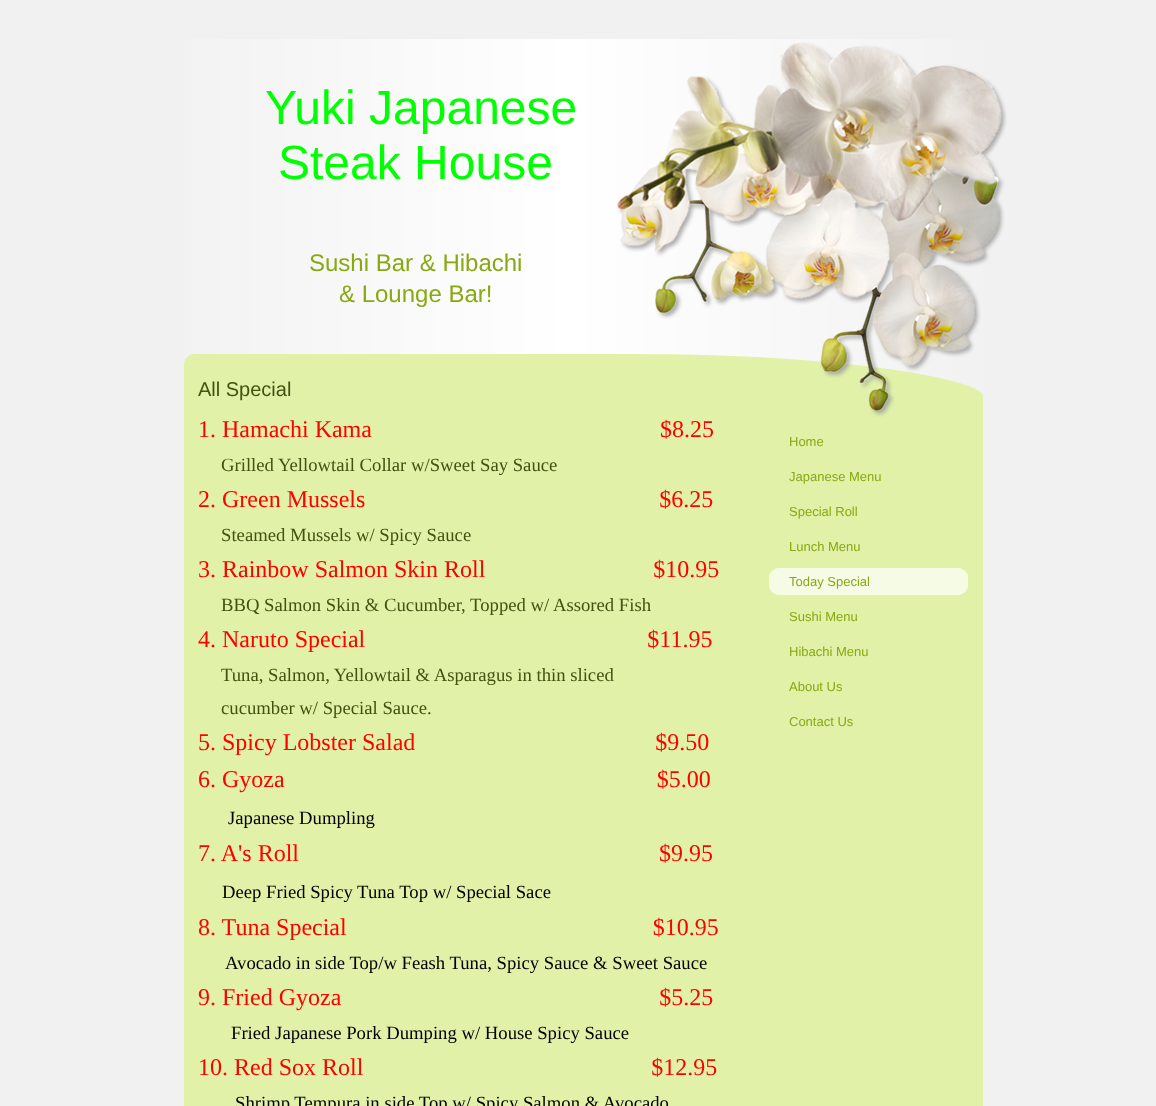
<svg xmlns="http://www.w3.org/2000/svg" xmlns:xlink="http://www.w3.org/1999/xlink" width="1156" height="1106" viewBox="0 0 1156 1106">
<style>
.cls-1{font:48px Liberation Sans;fill:#00ff00}
.cls-2{font:24px Liberation Sans;fill:#87a912}
.cls-3{font:20px Liberation Sans;fill:#435211}
.cls-4{font:24px Liberation Serif;fill:#ff0000}
.cls-5{font:18.7px Liberation Serif;fill:#435211}
.cls-6{font:18.7px Liberation Serif;fill:#000000}
.cls-7{font:13px Liberation Sans;fill:#87a912}
</style>
<rect width="100%" height="100%" fill="#f1f1f1"/>
<rect fill="#e1f1a8" x="184" y="418" width="799" height="688"/>
<image xlink:href="image0.png" x="184" y="39" width="823" height="379"/>
<image xlink:href="image1.png" x="769" y="568" width="199" height="6"/>
<rect fill="#f6fbe5" x="769" y="574" width="199" height="12"/>
<image xlink:href="image2.png" x="769" y="586" width="199" height="9"/>
<text class="cls-1" x="265" y="124">Yuki Japanese</text>
<text class="cls-1" x="278" y="179">Steak House</text>
<text class="cls-2" x="309" y="271">Sushi Bar &amp; Hibachi</text>
<text class="cls-2" x="339" y="302">&amp; Lounge Bar!</text>
<text class="cls-3" x="198" y="396">All Special</text>
<text class="cls-4" xml:space="preserve" x="198" y="437">1. Hamachi Kama                                                $8.25</text>
<text class="cls-5" x="221" y="471">Grilled Yellowtail Collar w/Sweet Say Sauce</text>
<text class="cls-4" xml:space="preserve" x="198" y="507">2. Green Mussels                                                 $6.25</text>
<text class="cls-5" x="221" y="541">Steamed Mussels w/ Spicy Sauce</text>
<text class="cls-4" xml:space="preserve" x="198" y="577">3. Rainbow Salmon Skin Roll                            $10.95</text>
<text class="cls-5" x="221" y="611">BBQ Salmon Skin &amp; Cucumber, Topped w/ Assored Fish</text>
<text class="cls-4" xml:space="preserve" x="198" y="647">4. Naruto Special                                               $11.95</text>
<text class="cls-5"><tspan x="221" y="681">Tuna, Salmon, Yellowtail &amp; Asparagus in thin sliced</tspan><tspan x="221" y="714">cucumber w/ Special Sauce.</tspan></text>
<text class="cls-4" xml:space="preserve"><tspan x="198" y="750">5. Spicy Lobster Salad                                        $9.50</tspan><tspan x="198" y="787">6. Gyoza                                                              $5.00</tspan></text>
<text class="cls-6" x="228" y="824">Japanese Dumpling</text>
<text class="cls-4" xml:space="preserve" x="198" y="861">7. A's Roll                                                            $9.95</text>
<text class="cls-6" x="222" y="898">Deep Fried Spicy Tuna Top w/ Special Sace</text>
<text class="cls-4" xml:space="preserve" x="198" y="935">8. Tuna Special                                                   $10.95</text>
<text class="cls-6" x="225" y="969">Avocado in side Top/w Feash Tuna, Spicy Sauce &amp; Sweet Sauce</text>
<text class="cls-4" xml:space="preserve" x="198" y="1005">9. Fried Gyoza                                                     $5.25</text>
<text class="cls-6" x="231" y="1039">Fried Japanese Pork Dumping w/ House Spicy Sauce</text>
<text class="cls-4" xml:space="preserve" x="198" y="1075">10. Red Sox Roll                                                $12.95</text>
<text class="cls-6" x="235" y="1109">Shrimp Tempura in side Top w/ Spicy Salmon &amp; Avocado</text>
<text class="cls-7" x="789" y="446">Home</text>
<text class="cls-7" x="789" y="481">Japanese Menu</text>
<text class="cls-7" x="789" y="516">Special Roll</text>
<text class="cls-7" x="789" y="551">Lunch Menu</text>
<text class="cls-7" x="789" y="586">Today Special</text>
<text class="cls-7" x="789" y="621">Sushi Menu</text>
<text class="cls-7" x="789" y="656">Hibachi Menu</text>
<text class="cls-7" x="789" y="691">About Us</text>
<text class="cls-7" x="789" y="726">Contact Us</text>
</svg>
